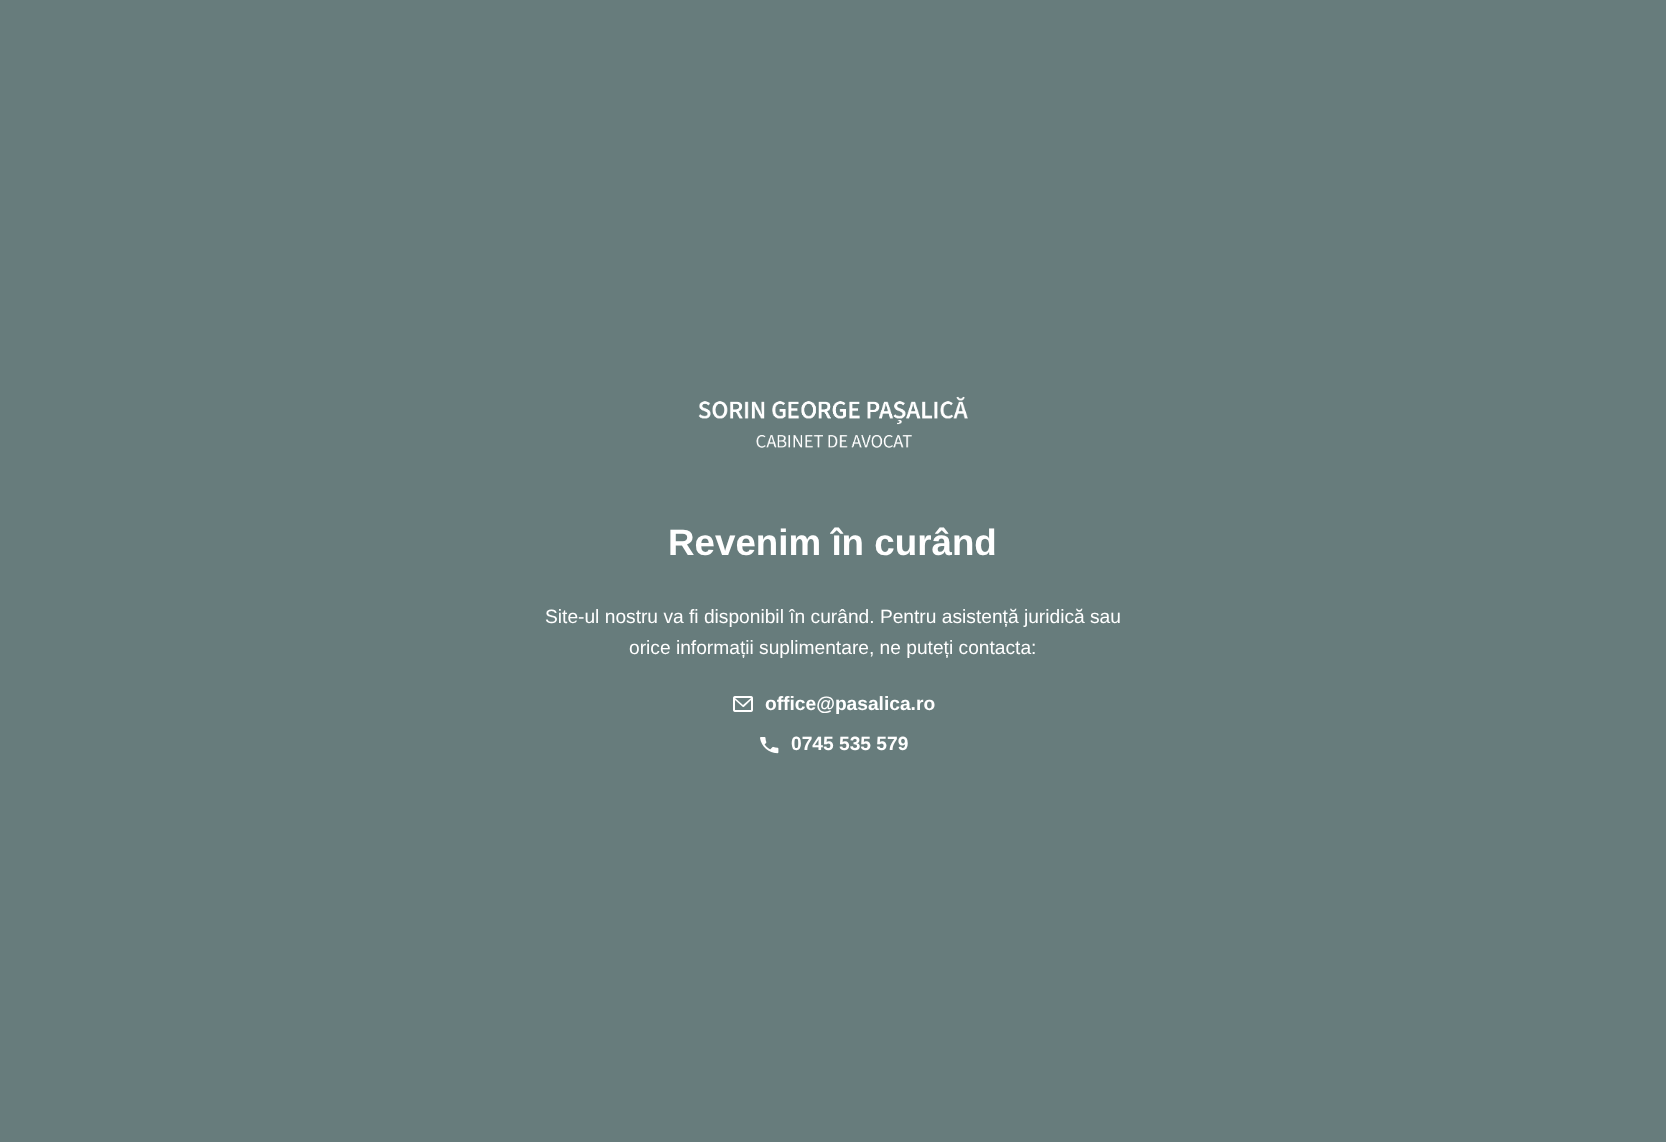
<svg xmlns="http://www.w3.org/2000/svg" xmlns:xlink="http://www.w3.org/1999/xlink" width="1666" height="1142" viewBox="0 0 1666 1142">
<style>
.cls-1{font:bold 36.75px Liberation Sans;fill:#ffffff}
.cls-2{font:19.2px Liberation Sans;fill:#ffffff}
.cls-3{font:bold 19.2px Liberation Sans;fill:#ffffff}
</style>
<rect width="100%" height="100%" fill="#677c7c"/>
<image xlink:href="image0.png" x="698" y="396" width="270" height="52"/>
<image xlink:href="image1.png" x="733" y="696" width="20" height="16"/>
<image xlink:href="image2.png" x="760" y="737" width="19" height="17"/>
<text class="cls-1" x="668" y="555">Revenim în curând</text>
<text class="cls-2" x="545" y="623">Site-ul nostru va fi disponibil în curând. Pentru asistență juridică sau</text>
<text class="cls-2" x="629" y="654">orice informații suplimentare, ne puteți contacta:</text>
<text class="cls-3" x="765" y="710">office@pasalica.ro</text>
<text class="cls-3" x="791" y="750">0745 535 579</text>
</svg>
